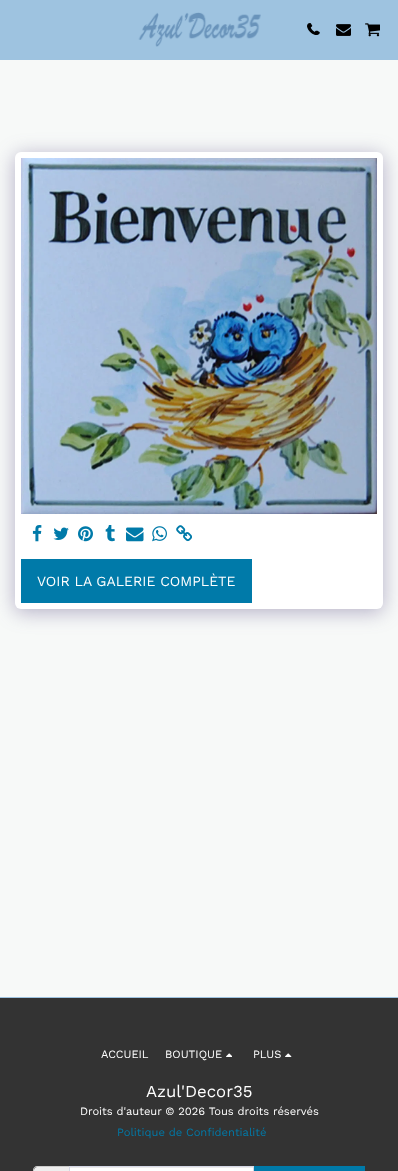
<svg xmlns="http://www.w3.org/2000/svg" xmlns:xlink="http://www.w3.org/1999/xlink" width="398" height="1171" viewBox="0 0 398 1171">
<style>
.cls-1{font:14px Work Sans;fill:#ffffff}
.cls-2{font:11.2px Work Sans;fill:#ffffff}
.cls-3{font:16.75px Work Sans;fill:#ffffff}
.cls-4{font:11.2px Work Sans;fill:#007aa9}
</style>
<rect width="100%" height="100%" fill="#f7f9f8"/>
<rect fill="#9ec3e0" x="0" y="0" width="398" height="60"/>
<image xlink:href="image0.png" x="138" y="12" width="123" height="35"/>
<image xlink:href="image1.png" x="308" y="23" width="12" height="12"/>
<image xlink:href="image2.png" x="307" y="23" width="12" height="12"/>
<image xlink:href="image3.png" x="336" y="24" width="15" height="12"/>
<image xlink:href="image4.png" x="365" y="23" width="15" height="14"/>
<rect fill="#4d3f7a" fill-opacity="0.4" filter="blur(10px)" x="15" y="155" width="368" height="457" rx="6"/>
<rect fill="#ffffff" x="15" y="152" width="368" height="457" rx="6"/>
<image xlink:href="image5.png" x="21" y="158" width="356" height="356"/>
<image xlink:href="image6.png" x="32" y="525" width="10" height="17"/>
<image xlink:href="image7.png" x="53" y="527" width="16" height="13"/>
<image xlink:href="image8.png" x="78" y="526" width="15" height="16"/>
<image xlink:href="image9.png" x="105" y="525" width="10" height="17"/>
<image xlink:href="image10.png" x="126" y="527" width="18" height="15"/>
<image xlink:href="image11.png" x="152" y="526" width="15" height="16"/>
<image xlink:href="image12.png" x="176" y="525" width="16" height="17"/>
<rect fill="#007aa9" x="21" y="559" width="231" height="44"/>
<rect fill="#333333" x="0" y="998" width="398" height="173"/>
<rect fill="#9ec3e0" x="0" y="997" width="398" height="1"/>
<image xlink:href="image13.png" x="226" y="1053" width="6" height="4"/>
<image xlink:href="image14.png" x="285" y="1053" width="7" height="4"/>
<path fill="#eeeeee" d="M37 1167H69V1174H37C35.5 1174 34 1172.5 34 1171V1170C34 1168.5 35.5 1167 37 1167Z"/>
<path fill="#cccccc" fill-rule="evenodd" d="M37 1166H69V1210H37C35 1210 33 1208 33 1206V1170C33 1168 35 1166 37 1166ZM37 1167H69V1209H37C35 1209 34 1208 34 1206V1170C34 1168 35 1167 37 1167Z"/>
<rect fill="#007aa9" x="253" y="1166" width="112" height="5"/>
<rect fill="#ffffff" x="69" y="1168" width="185" height="3"/>
<rect fill="#ececec" x="70" y="1167" width="183" height="1"/>
<rect fill="none" stroke="#d4d7e5" x="69.5" y="1166.5" width="184" height="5"/>
<text class="cls-1" x="37" y="586">VOIR LA GALERIE COMPLÈTE</text>
<text class="cls-2" x="101" y="1058">ACCUEIL</text>
<text class="cls-2" x="165" y="1058">BOUTIQUE</text>
<text class="cls-2" x="253" y="1058">PLUS</text>
<text class="cls-3" x="146" y="1097">Azul'Decor35</text>
<text class="cls-2" x="80" y="1115">Droits d'auteur © 2026 Tous droits réservés</text>
<text class="cls-4" x="117" y="1136">Politique de Confidentialité</text>
</svg>
